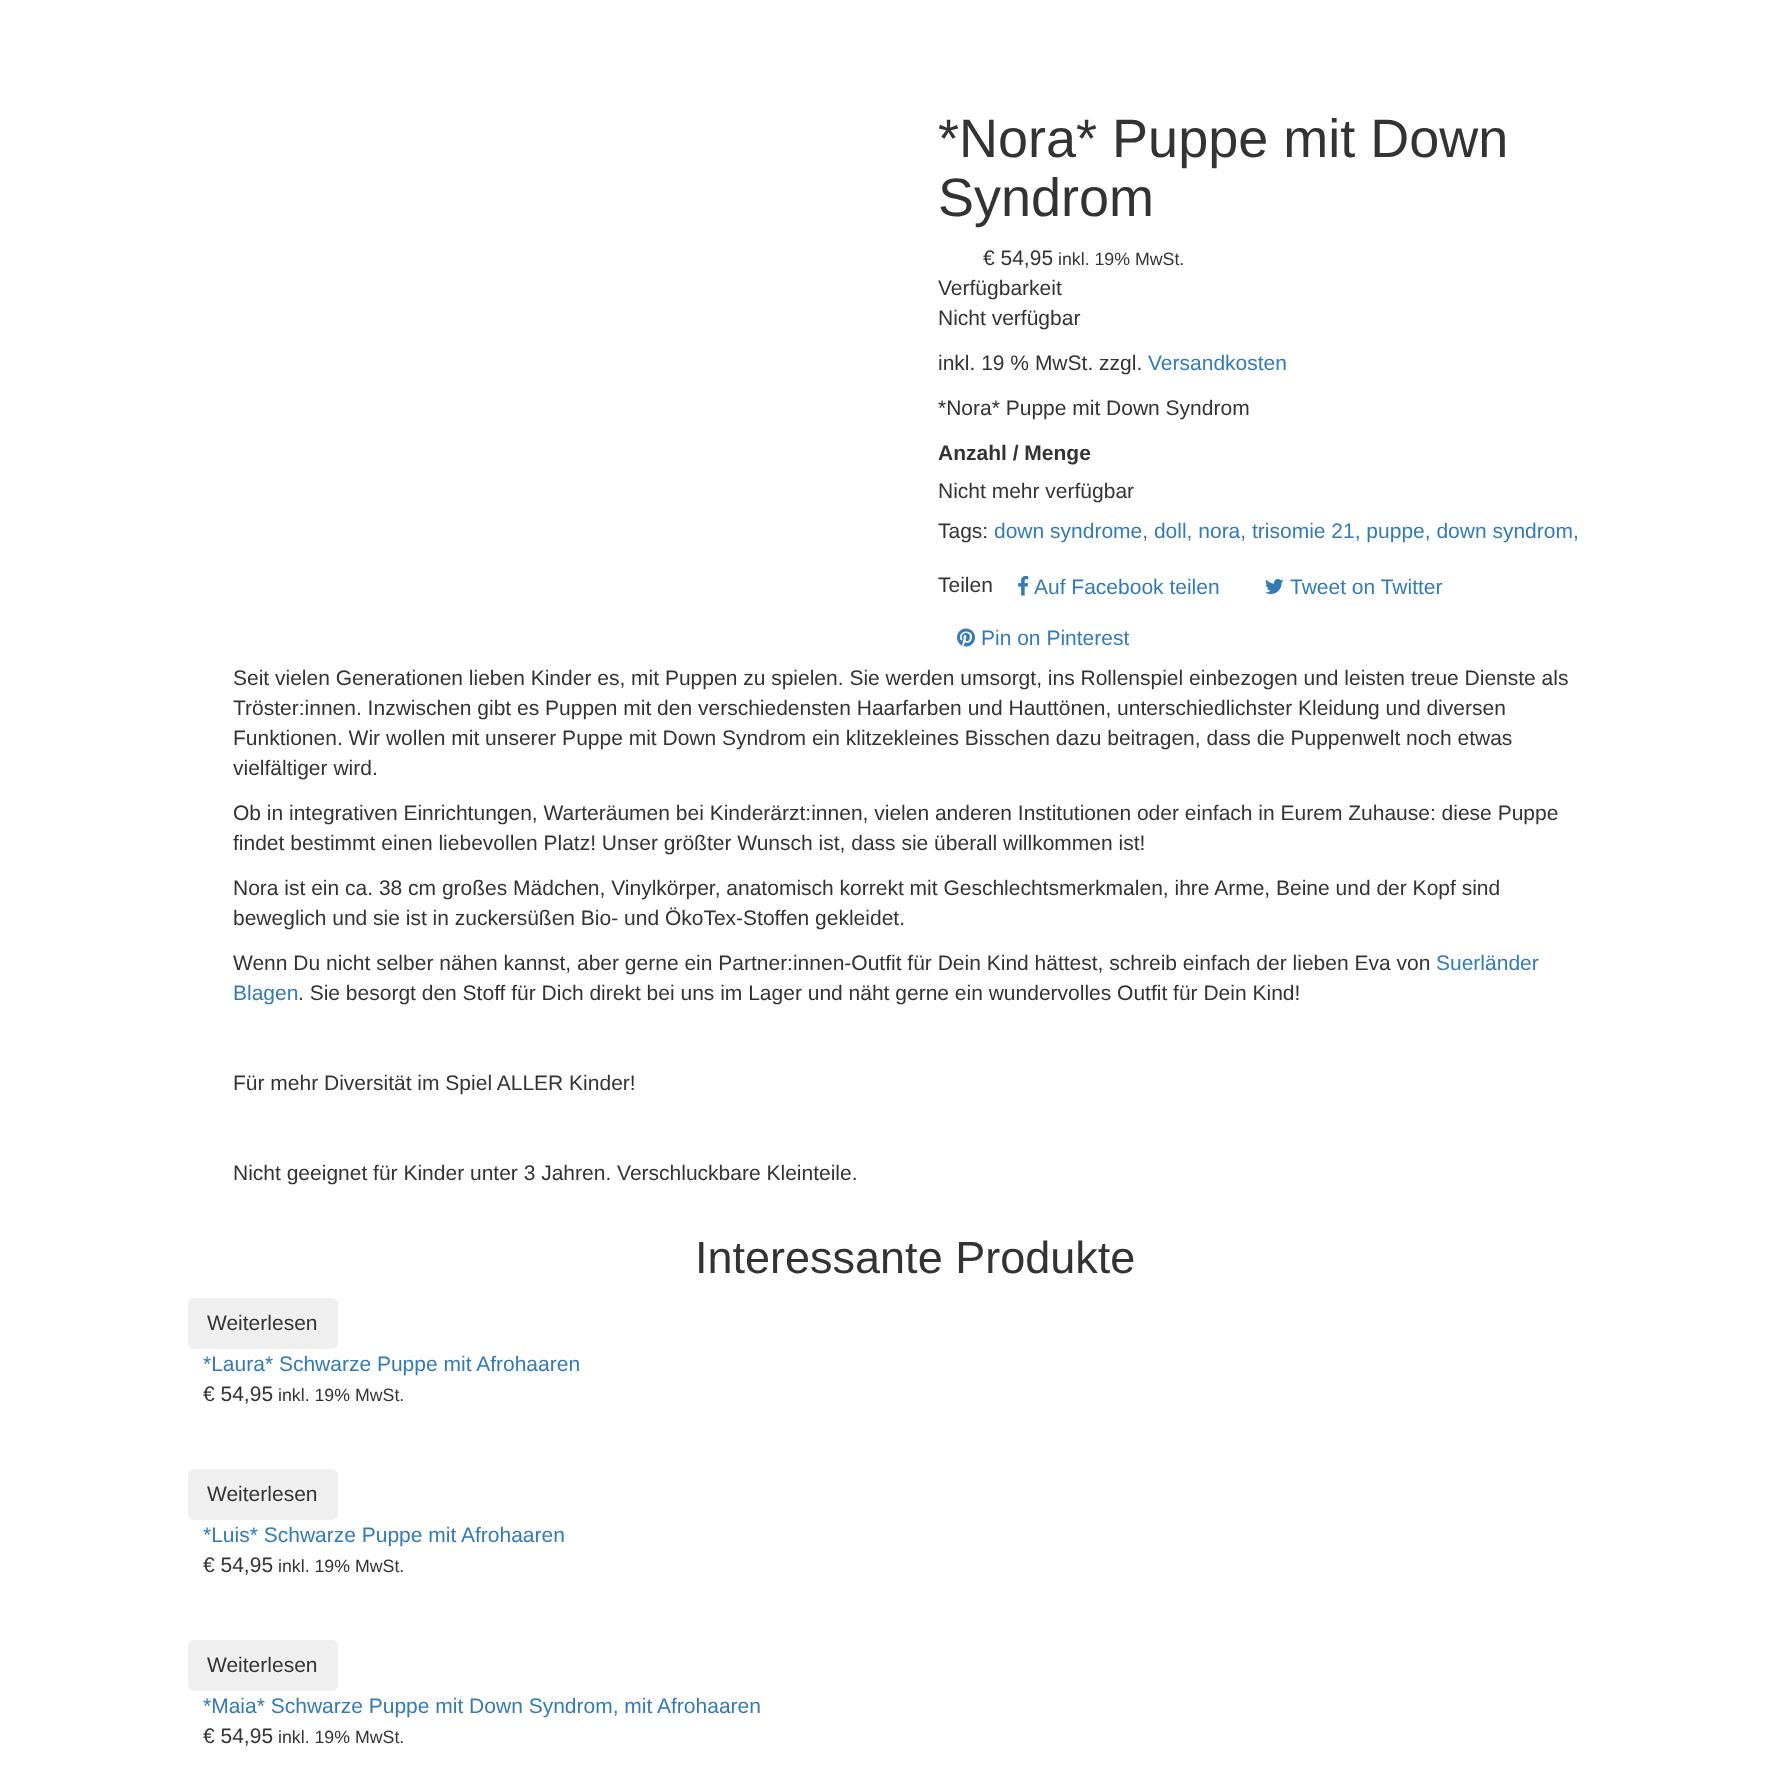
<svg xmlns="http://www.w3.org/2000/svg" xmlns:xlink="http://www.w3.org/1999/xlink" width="1784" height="1782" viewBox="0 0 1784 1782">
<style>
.cls-1{font:54px Liberation Sans;fill:#333333}
.cls-2{font:21px Liberation Sans;fill:#333333}
.cls-3{font:17.75px Liberation Sans;fill:#333333}
.cls-4{font:21px Liberation Sans;fill:#337ab7}
.cls-5{font:bold 21px Liberation Sans;fill:#333333}
.cls-6{font:45px Liberation Sans;fill:#333333}
</style>
<rect width="100%" height="100%" fill="#ffffff"/>
<image xlink:href="image0.png" x="1018" y="576" width="11" height="20"/>
<image xlink:href="image1.png" x="1265" y="579" width="19" height="15"/>
<image xlink:href="image2.png" x="957" y="628" width="18" height="19"/>
<rect fill="#efefef" x="188" y="1298" width="150" height="51" rx="6"/>
<rect fill="#efefef" x="188" y="1469" width="150" height="51" rx="6"/>
<rect fill="#efefef" x="188" y="1640" width="150" height="51" rx="6"/>
<text class="cls-1"><tspan x="938" y="157">*Nora* Puppe mit Down</tspan><tspan x="938" y="216">Syndrom</tspan></text>
<text class="cls-2" x="983" y="265">€ 54,95</text>
<text class="cls-3" x="1058" y="265">inkl. 19% MwSt.</text>
<text class="cls-2"><tspan x="938" y="295">Verfügbarkeit</tspan><tspan x="938" y="325">Nicht verfügbar</tspan></text>
<text class="cls-2" x="938" y="370">inkl. 19 % MwSt. zzgl.</text>
<text class="cls-4" x="1148" y="370">Versandkosten</text>
<text class="cls-2" x="938" y="415">*Nora* Puppe mit Down Syndrom</text>
<text class="cls-5" x="938" y="460">Anzahl / Menge</text>
<text class="cls-2"><tspan x="938" y="498">Nicht mehr verfügbar</tspan><tspan x="938" y="538">Tags:</tspan></text>
<text class="cls-4" x="994" y="538">down syndrome, doll, nora, trisomie 21, puppe, down syndrom,</text>
<text class="cls-2" x="938" y="592">Teilen</text>
<text class="cls-4" x="1034" y="594">Auf Facebook teilen</text>
<text class="cls-4" x="1290" y="594">Tweet on Twitter</text>
<text class="cls-4" x="981" y="645">Pin on Pinterest</text>
<text class="cls-2"><tspan x="233" y="685">Seit vielen Generationen lieben Kinder es, mit Puppen zu spielen. Sie werden umsorgt, ins Rollenspiel einbezogen und leisten treue Dienste als</tspan><tspan x="233" y="715">Tröster:innen. Inzwischen gibt es Puppen mit den verschiedensten Haarfarben und Hauttönen, unterschiedlichster Kleidung und diversen</tspan><tspan x="233" y="745">Funktionen. Wir wollen mit unserer Puppe mit Down Syndrom ein klitzekleines Bisschen dazu beitragen, dass die Puppenwelt noch etwas</tspan><tspan x="233" y="775">vielfältiger wird.</tspan></text>
<text class="cls-2"><tspan x="233" y="820">Ob in integrativen Einrichtungen, Warteräumen bei Kinderärzt:innen, vielen anderen Institutionen oder einfach in Eurem Zuhause: diese Puppe</tspan><tspan x="233" y="850">findet bestimmt einen liebevollen Platz! Unser größter Wunsch ist, dass sie überall willkommen ist!</tspan></text>
<text class="cls-2"><tspan x="233" y="895">Nora ist ein ca. 38 cm großes Mädchen, Vinylkörper, anatomisch korrekt mit Geschlechtsmerkmalen, ihre Arme, Beine und der Kopf sind</tspan><tspan x="233" y="925">beweglich und sie ist in zuckersüßen Bio- und ÖkoTex-Stoffen gekleidet.</tspan></text>
<text class="cls-2" x="233" y="970">Wenn Du nicht selber nähen kannst, aber gerne ein Partner:innen-Outfit für Dein Kind hättest, schreib einfach der lieben Eva von</text>
<text class="cls-4" x="1436" y="970">Suerländer</text>
<text class="cls-4" x="233" y="1000">Blagen</text>
<text class="cls-2" x="298" y="1000">. Sie besorgt den Stoff für Dich direkt bei uns im Lager und näht gerne ein wundervolles Outfit für Dein Kind!</text>
<text class="cls-2" x="233" y="1090">Für mehr Diversität im Spiel ALLER Kinder!</text>
<text class="cls-2" x="233" y="1180">Nicht geeignet für Kinder unter 3 Jahren. Verschluckbare Kleinteile.</text>
<text class="cls-6" x="695" y="1273">Interessante Produkte</text>
<text class="cls-2" x="207" y="1330">Weiterlesen</text>
<text class="cls-4" x="203" y="1371">*Laura* Schwarze Puppe mit Afrohaaren</text>
<text class="cls-2" x="203" y="1401">€ 54,95</text>
<text class="cls-3" x="278" y="1401">inkl. 19% MwSt.</text>
<text class="cls-2" x="207" y="1501">Weiterlesen</text>
<text class="cls-4" x="203" y="1542">*Luis* Schwarze Puppe mit Afrohaaren</text>
<text class="cls-2" x="203" y="1572">€ 54,95</text>
<text class="cls-3" x="278" y="1572">inkl. 19% MwSt.</text>
<text class="cls-2" x="207" y="1672">Weiterlesen</text>
<text class="cls-4" x="203" y="1713">*Maia* Schwarze Puppe mit Down Syndrom, mit Afrohaaren</text>
<text class="cls-2" x="203" y="1743">€ 54,95</text>
<text class="cls-3" x="278" y="1743">inkl. 19% MwSt.</text>
</svg>
